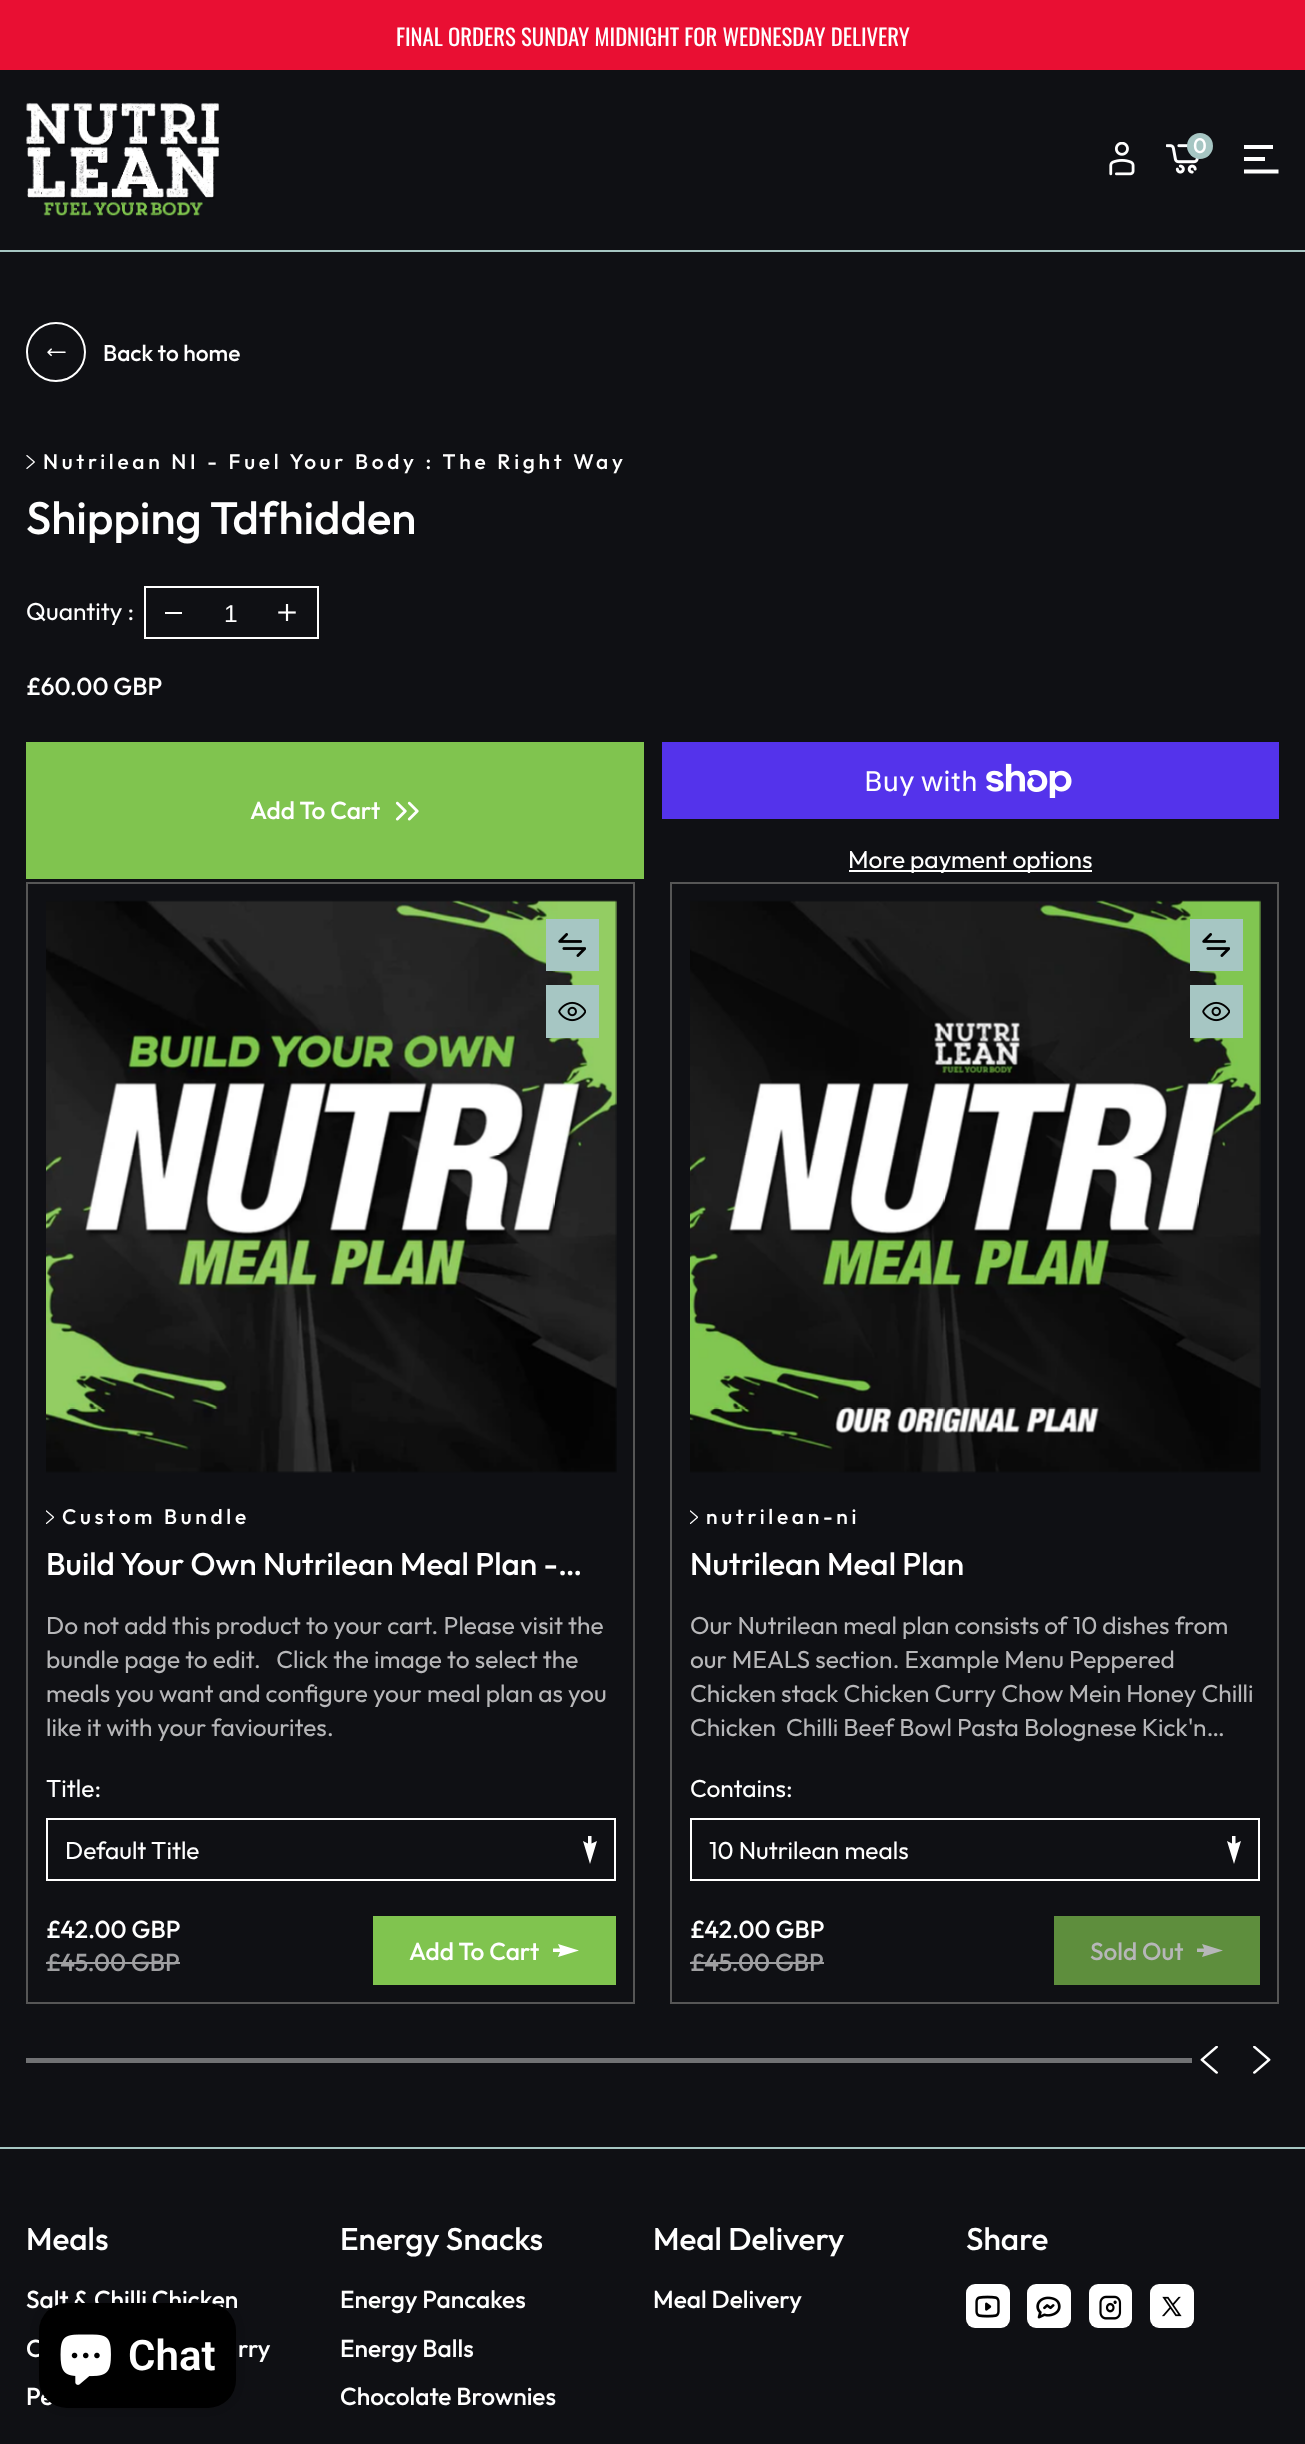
<svg xmlns="http://www.w3.org/2000/svg" xmlns:xlink="http://www.w3.org/1999/xlink" width="1305" height="2444" viewBox="0 0 1305 2444">
<style>
.cls-1{font:22.75px Oswald;fill:#ffffff}
.cls-2{font:500 21px Outfit;fill:#ffffff}
.cls-3{font:500 22.75px Outfit;fill:#ffffff}
.cls-4{font:500 21px Outfit;letter-spacing:3.7px;fill:#ffffff}
.cls-5{font:500 45.5px Outfit;fill:#ffffff}
.cls-6{font:24.5px Outfit;fill:#ffffff}
.cls-7{font:24.5px Liberation Sans;fill:#ffffff}
.cls-8{font:500 24.5px Outfit;fill:#ffffff}
.cls-9{font:28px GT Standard;fill:#ffffff}
.cls-10{font:500 31.5px Outfit;fill:#ffffff}
.cls-11{font:24.5px Outfit;fill:#b7b7b9}
.cls-12{font:500 24.5px Outfit;fill:#9f9fa1}
.cls-13{font:500 24.5px Outfit;fill:#b7b7b9}
.cls-14{font:600 42px Roboto;fill:#ffffff}
</style>
<defs>
<clipPath id="clip1"><rect x="583" y="1836" width="14" height="28"/></clipPath>
<clipPath id="clip2"><rect x="1227" y="1836" width="14" height="28"/></clipPath>
</defs>
<rect width="100%" height="100%" fill="#0f1014"/>
<rect fill="#a6c6c3" x="0" y="250" width="1305" height="2"/>
<rect fill="#e90f33" x="0" y="0" width="1305" height="70"/>
<image xlink:href="image0.png" x="26" y="103" width="193" height="113"/>
<image xlink:href="image1.png" x="1109" y="142" width="26" height="34"/>
<image xlink:href="image2.png" x="1166" y="144" width="33" height="30"/>
<circle fill="#a6c6c3" cx="1200" cy="146" r="13"/>
<path fill="none" stroke="#ffffff" stroke-width="4" d="M1244 171.5H1278.5"/>
<rect fill="#ffffff" x="1244" y="157" width="21" height="4"/>
<rect fill="#ffffff" x="1244" y="145" width="29" height="4"/>
<circle fill="none" stroke="#ffffff" stroke-width="2" cx="56" cy="352" r="29"/>
<image xlink:href="image3.png" x="47" y="348" width="19" height="9"/>
<image xlink:href="image4.png" x="26" y="455" width="9" height="14"/>
<rect fill="none" stroke="#ffffff" stroke-width="2" x="145" y="587" width="173" height="51"/>
<rect fill="#ffffff" x="165" y="612" width="17" height="2"/>
<image xlink:href="image5.png" x="278" y="604" width="18" height="17"/>
<rect fill="#80c44f" x="26" y="742" width="618" height="137"/>
<image xlink:href="image6.png" x="395" y="801" width="24" height="20"/>
<rect fill="#5433eb" x="662" y="742" width="617" height="77"/>
<image xlink:href="image7.png" x="986" y="763" width="86" height="35"/>
<rect fill="#ffffff" x="849" y="870" width="243" height="2"/>
<rect fill="none" stroke="#565656" stroke-width="2" x="27" y="883" width="607" height="1120"/>
<image xlink:href="image8.png" x="46" y="900" width="571" height="573"/>
<rect fill="#a6c6c3" x="546" y="919" width="53" height="52"/>
<image xlink:href="image9.png" x="558" y="933" width="28" height="24"/>
<rect fill="#a6c6c3" x="546" y="985" width="53" height="53"/>
<image xlink:href="image10.png" x="558" y="1001" width="28" height="21"/>
<image xlink:href="image11.png" x="46" y="1510" width="8" height="14"/>
<g clip-path="url(#clip1)">
<path fill="#ffffff" d="M597 1841L590 1864L583 1841L588 1843.5V1835.5H591.5V1843.5Z"/>
</g>
<rect fill="none" stroke="#ffffff" stroke-width="2" x="47" y="1819" width="568" height="61"/>
<rect fill="#9f9fa1" x="46" y="1962" width="134" height="2"/>
<rect fill="#80c44f" x="373" y="1916" width="243" height="69"/>
<path fill="#ffffff" d="M558 1944L579 1950.5L558 1957L560 1952H553V1948.5H560Z"/>
<rect fill="none" stroke="#565656" stroke-width="2" x="671" y="883" width="607" height="1120"/>
<image xlink:href="image12.png" x="690" y="900" width="571" height="573"/>
<rect fill="#a6c6c3" x="1190" y="919" width="53" height="52"/>
<image xlink:href="image9.png" x="1202" y="933" width="28" height="24"/>
<rect fill="#a6c6c3" x="1190" y="985" width="53" height="53"/>
<image xlink:href="image10.png" x="1202" y="1001" width="28" height="21"/>
<image xlink:href="image11.png" x="690" y="1510" width="8" height="14"/>
<g clip-path="url(#clip2)">
<path fill="#ffffff" d="M1241 1841L1234 1864L1227 1841L1232 1843.5V1835.5H1235.5V1843.5Z"/>
</g>
<rect fill="none" stroke="#ffffff" stroke-width="2" x="691" y="1819" width="568" height="61"/>
<rect fill="#9f9fa1" x="690" y="1962" width="134" height="2"/>
<rect fill="#5e8e3d" x="1054" y="1916" width="206" height="69"/>
<path fill="#b7b7b9" d="M1202 1944L1223 1950.5L1202 1957L1204 1952H1197V1948.5H1204Z"/>
<rect fill="#717274" x="26" y="2058" width="1166" height="5"/>
<image xlink:href="image13.png" x="1200" y="2046" width="18" height="28"/>
<image xlink:href="image14.png" x="1253" y="2046" width="18" height="28"/>
<rect fill="#a6c6c3" x="0" y="2147" width="1305" height="2"/>
<rect fill="#ffffff" x="966" y="2284" width="44" height="44" rx="9"/>
<image xlink:href="image15.png" x="975" y="2295" width="25" height="23"/>
<rect fill="#ffffff" x="1027" y="2284" width="44" height="44" rx="9"/>
<image xlink:href="image16.png" x="1036" y="2296" width="25" height="23"/>
<rect fill="#ffffff" x="1089" y="2284" width="43" height="44" rx="9"/>
<image xlink:href="image17.png" x="1099" y="2295" width="23" height="25"/>
<rect fill="#ffffff" x="1150" y="2284" width="44" height="44" rx="9"/>
<image xlink:href="image18.png" x="1162" y="2296" width="20" height="21"/>
<rect fill="#000000" fill-opacity="0.15" filter="blur(4.5px)" x="39" y="2303" width="197" height="105" rx="28"/>
<text class="cls-1" x="396" y="46">FINAL ORDERS SUNDAY MIDNIGHT FOR WEDNESDAY DELIVERY</text>
<text class="cls-2" x="1193" y="153">0</text>
<text class="cls-3" x="103" y="361">Back to home</text>
<text class="cls-4" x="43" y="469">Nutrilean NI - Fuel Your Body : The Right Way</text>
<text class="cls-5" x="26" y="534">Shipping Tdfhidden</text>
<text class="cls-6" x="26" y="620">Quantity :</text>
<text class="cls-7" x="224" y="622">1</text>
<text class="cls-8" x="26" y="695">£60.00 GBP</text>
<text class="cls-8" x="250" y="819">Add To Cart</text>
<text class="cls-9" x="864" y="791">Buy with</text>
<text class="cls-6" x="848" y="868">More payment options</text>
<text class="cls-4" x="62" y="1524">Custom Bundle</text>
<text class="cls-10" x="46" y="1575">Build Your Own Nutrilean Meal Plan -…</text>
<text class="cls-11" xml:space="preserve"><tspan x="46" y="1634">Do not add this product to your cart. Please visit the</tspan><tspan x="46" y="1668">bundle page to edit.   Click the image to select the</tspan><tspan x="46" y="1702">meals you want and configure your meal plan as you</tspan><tspan x="46" y="1736">like it with your faviourites.</tspan></text>
<text class="cls-6" x="46" y="1797">Title:</text>
<text class="cls-6" x="65" y="1859">Default Title</text>
<text class="cls-8" x="46" y="1938">£42.00 GBP</text>
<text class="cls-12" x="46" y="1971">£45.00 GBP</text>
<text class="cls-8" x="409" y="1960">Add To Cart</text>
<text class="cls-4" x="706" y="1524">nutrilean-ni</text>
<text class="cls-10" x="690" y="1575">Nutrilean Meal Plan</text>
<text class="cls-11"><tspan x="690" y="1634">Our Nutrilean meal plan consists of 10 dishes from</tspan><tspan x="690" y="1668">our MEALS section. Example Menu Peppered</tspan><tspan x="690" y="1702">Chicken stack Chicken Curry Chow Mein Honey Chilli</tspan><tspan x="690" y="1736">Chicken</tspan></text>
<text class="cls-11" x="786" y="1736">Chilli Beef Bowl Pasta Bolognese Kick'n…</text>
<text class="cls-6" x="690" y="1797">Contains:</text>
<text class="cls-6" x="709" y="1859">10 Nutrilean meals</text>
<text class="cls-8" x="690" y="1938">£42.00 GBP</text>
<text class="cls-12" x="690" y="1971">£45.00 GBP</text>
<text class="cls-13" x="1090" y="1960">Sold Out</text>
<text class="cls-10" x="26" y="2250">Meals</text>
<text class="cls-8" x="26" y="2308">Salt &amp; Chilli Chicken</text>
<text class="cls-8" x="26" y="2357">C</text>
<text class="cls-8" x="238" y="2357">rry</text>
<text class="cls-8" x="26" y="2405">Pe</text>
<text class="cls-10" x="340" y="2250">Energy Snacks</text>
<text class="cls-8" x="340" y="2308">Energy Pancakes</text>
<text class="cls-8"><tspan x="340" y="2357">Energy Balls</tspan><tspan x="340" y="2405">Chocolate Brownies</tspan></text>
<text class="cls-10" x="653" y="2250">Meal Delivery</text>
<text class="cls-8" x="653" y="2308">Meal Delivery</text>
<text class="cls-10" x="966" y="2250">Share</text>
<rect fill="#000000" x="39" y="2303" width="197" height="105" rx="28"/>
<image xlink:href="image19.png" x="60" y="2334" width="51" height="51"/>
<text class="cls-14" x="128" y="2370">Chat</text>
</svg>
